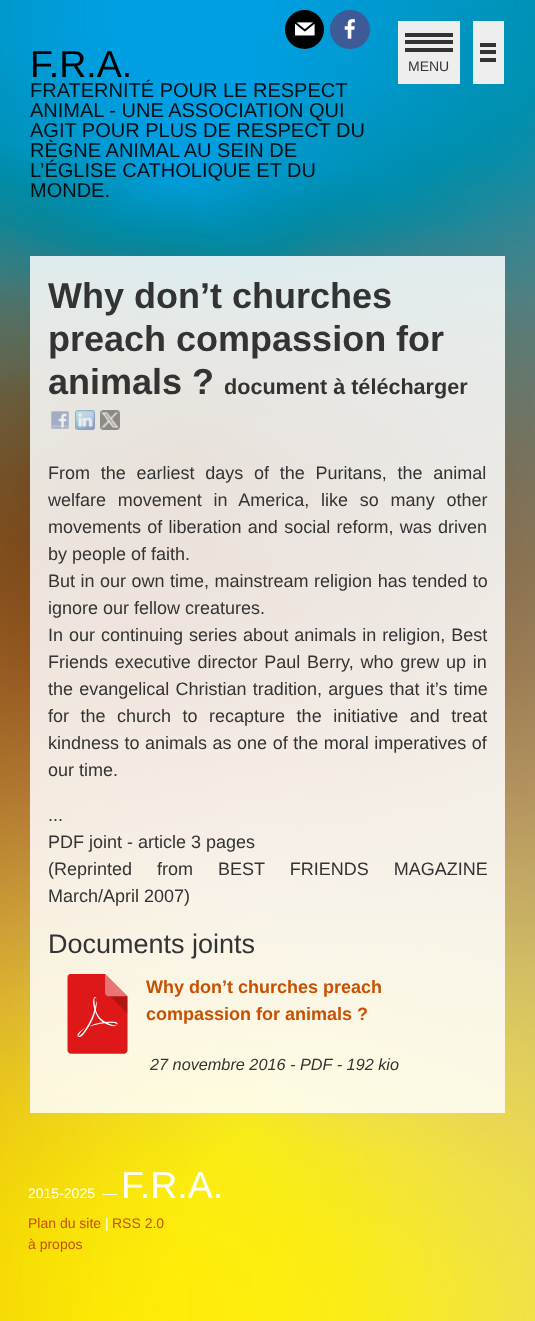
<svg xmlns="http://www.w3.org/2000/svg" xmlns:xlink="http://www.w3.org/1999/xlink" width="535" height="1321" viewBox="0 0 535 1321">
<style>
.cls-1{font:37.5px Liberation Sans;fill:#000000}
.cls-2{font:20px Liberation Sans;fill:#001016}
.cls-3{font:14px Liberation Sans;fill:#333333}
.cls-4{font:bold 36px Liberation Sans;fill:#333333}
.cls-5{font:bold 21.6px Liberation Sans;fill:#333333}
.cls-6{font:18px Liberation Sans;fill:#333333}
.cls-7{font:27px Liberation Sans;fill:#333333}
.cls-8{font:bold 18px Liberation Sans;fill:#c85000}
.cls-9{font:italic 16.25px Liberation Sans;fill:#333333}
.cls-10{font:14px Liberation Sans;fill:#ffffff}
.cls-11{font:37.5px Liberation Sans;fill:#ffffff}
.cls-12{font:14px Liberation Sans;fill:#c85000}
</style>
<rect width="100%" height="100%" fill="#ffffff"/>
<image xlink:href="image0.png" x="0" y="0" width="535" height="1321"/>
<circle fill="#000000" cx="304.5" cy="29.5" r="19.5"/>
<image xlink:href="image1.png" x="295" y="22" width="20" height="14"/>
<rect fill="#3e5b98" x="330" y="10" width="40" height="39" rx="19.5"/>
<image xlink:href="image2.png" x="344" y="19" width="11" height="20"/>
<rect fill="#eeeeee" x="398" y="21" width="62" height="63"/>
<rect fill="#333333" x="405" y="40" width="48" height="4"/>
<rect fill="#333333" x="405" y="33" width="48" height="4"/>
<rect fill="#333333" x="405" y="48" width="48" height="4"/>
<rect fill="#eeeeee" x="473" y="21" width="31" height="63"/>
<rect fill="#333333" x="480" y="50" width="16" height="4"/>
<rect fill="#333333" x="480" y="43" width="16" height="4"/>
<rect fill="#333333" x="480" y="58" width="16" height="4"/>
<rect fill="#ffffff" fill-opacity="0.85" x="30" y="256" width="475" height="857"/>
<image xlink:href="image3.png" x="51" y="411" width="18" height="18"/>
<image xlink:href="image4.png" x="75" y="410" width="20" height="20"/>
<image xlink:href="image5.png" x="100" y="410" width="20" height="20"/>
<image xlink:href="image6.png" x="67" y="974" width="61" height="80"/>
<text class="cls-1" x="30" y="77">F.R.A.</text>
<text class="cls-2"><tspan x="30" y="97">FRATERNITÉ POUR LE RESPECT</tspan><tspan x="30" y="117">ANIMAL - UNE ASSOCIATION QUI</tspan><tspan x="30" y="137">AGIT POUR PLUS DE RESPECT DU</tspan><tspan x="30" y="157">RÈGNE ANIMAL AU SEIN DE</tspan><tspan x="30" y="177">L’ÉGLISE CATHOLIQUE ET DU</tspan><tspan x="30" y="197">MONDE.</tspan></text>
<text class="cls-3" x="408" y="71">MENU</text>
<text class="cls-4"><tspan x="48" y="308">Why don’t churches</tspan><tspan x="48" y="351">preach compassion for</tspan><tspan x="48" y="394">animals ?</tspan></text>
<text class="cls-5" x="224" y="394">document à télécharger</text>
<text class="cls-6"><tspan x="48" y="479" word-spacing="5.75">From the earliest days of the Puritans, the animal</tspan><tspan x="48" y="506" word-spacing="6.75">welfare movement in America, like so many other</tspan><tspan x="48" y="533" word-spacing="1.25">movements of liberation and social reform, was driven</tspan><tspan x="48" y="560">by people of faith.</tspan><tspan x="48" y="587" word-spacing="0.5">But in our own time, mainstream religion has tended to</tspan><tspan x="48" y="614">ignore our fellow creatures.</tspan><tspan x="48" y="641" word-spacing="1">In our continuing series about animals in religion, Best</tspan><tspan x="48" y="668" word-spacing="1.75">Friends executive director Paul Berry, who grew up in</tspan><tspan x="48" y="695" word-spacing="1.25">the evangelical Christian tradition, argues that it’s time</tspan><tspan x="48" y="722" word-spacing="6.5">for the church to recapture the initiative and treat</tspan><tspan x="48" y="749" word-spacing="0.5">kindness to animals as one of the moral imperatives of</tspan><tspan x="48" y="776">our time.</tspan></text>
<text class="cls-6"><tspan x="48" y="821">...</tspan><tspan x="48" y="848">PDF joint - article 3 pages</tspan><tspan x="48" y="875" word-spacing="20">(Reprinted from BEST FRIENDS MAGAZINE</tspan><tspan x="48" y="902">March/April 2007)</tspan></text>
<text class="cls-7" x="48" y="953">Documents joints</text>
<text class="cls-8"><tspan x="146" y="993">Why don’t churches preach</tspan><tspan x="146" y="1020">compassion for animals ?</tspan></text>
<text class="cls-9" x="150" y="1070">27 novembre 2016 - PDF - 192 kio</text>
<text class="cls-10" xml:space="preserve" x="28" y="1198">2015-2025  —</text>
<text class="cls-11" x="121" y="1198">F.R.A.</text>
<text class="cls-12" x="28" y="1228">Plan du site</text>
<text class="cls-10" x="105" y="1228">|</text>
<text class="cls-12" x="112" y="1228">RSS 2.0</text>
<text class="cls-12" x="28" y="1249">à propos</text>
</svg>
